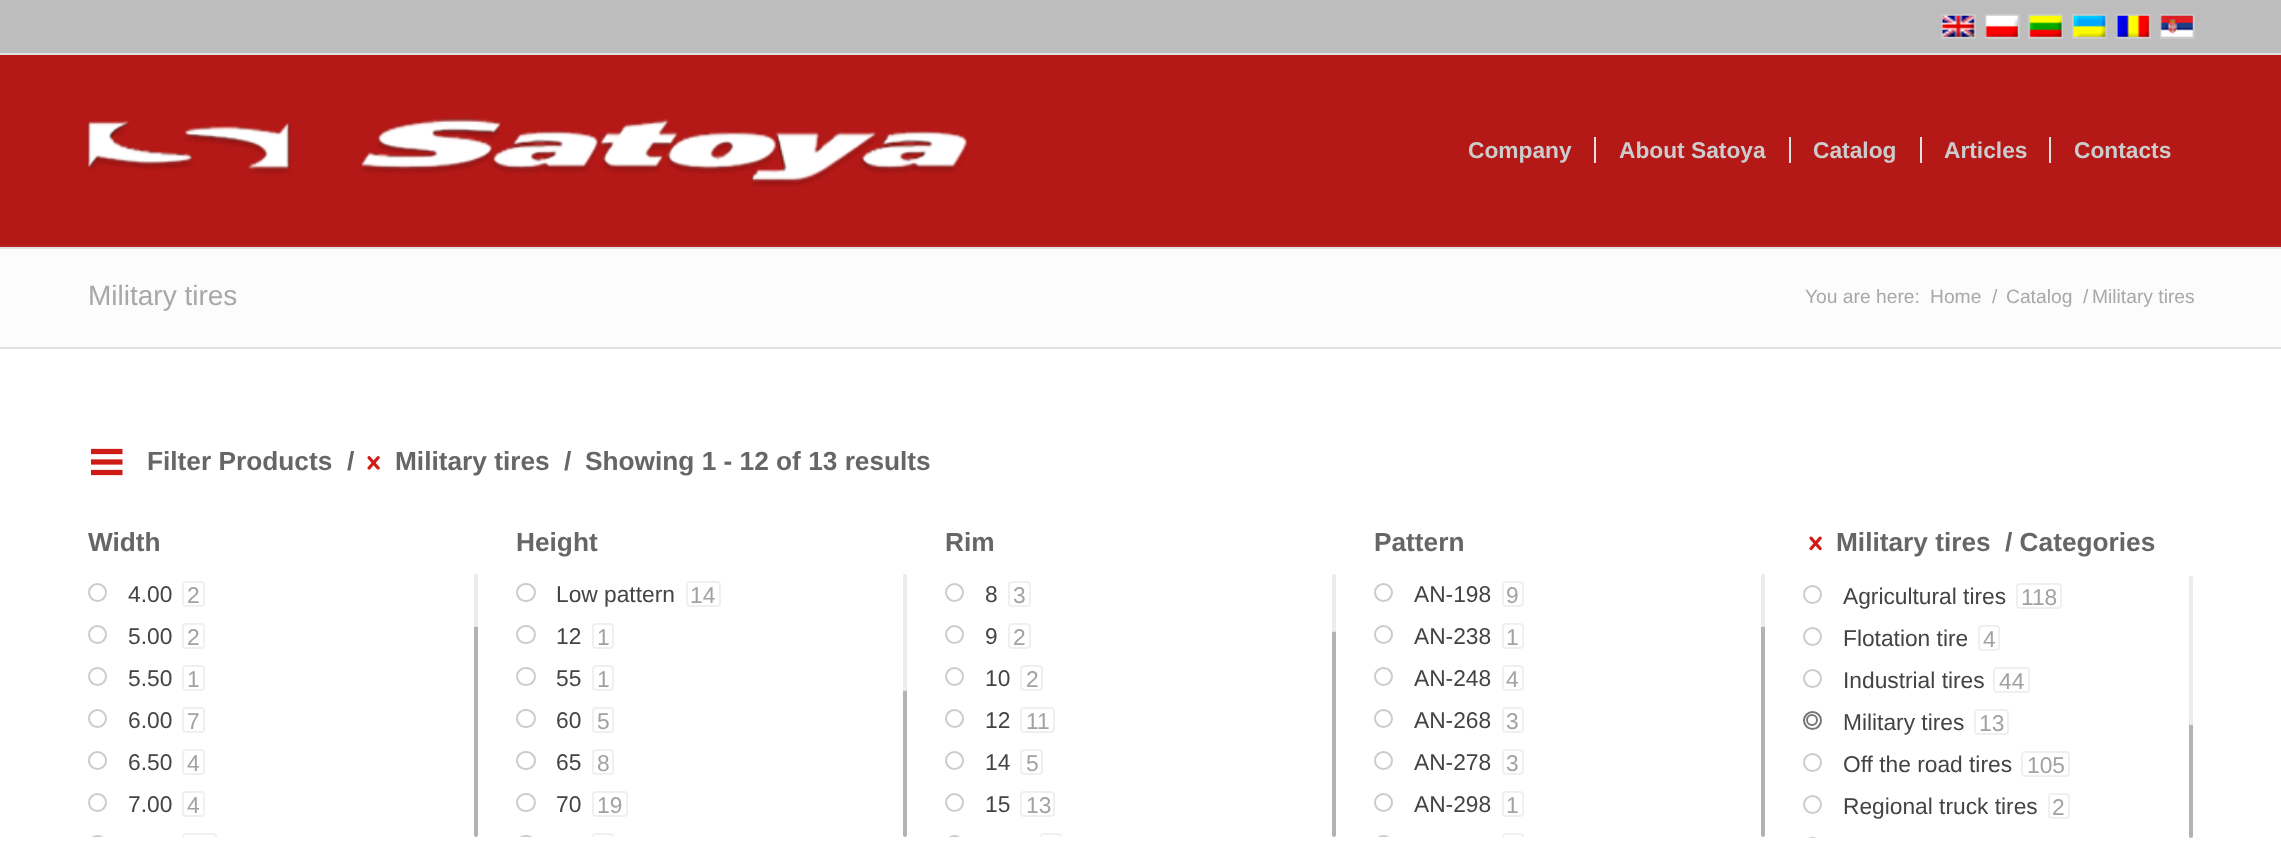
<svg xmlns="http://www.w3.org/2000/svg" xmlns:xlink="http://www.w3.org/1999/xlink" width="2281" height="846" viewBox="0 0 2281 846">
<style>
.cls-1{font:bold 22.75px Arimo;fill:#cccccc}
.cls-2{font:28px Arimo;fill:#a8a8a8}
.cls-3{font:19.25px Arimo;fill:#a8a8a8}
.cls-4{font:bold 26.25px Arimo;fill:#666666}
.cls-5{font:22.75px Arimo;fill:#444444}
.cls-6{font:22.75px Arimo;fill:#a2a2a2}
</style>
<defs>
<clipPath id="clip1"><rect x="88" y="574" width="358" height="263"/></clipPath>
<clipPath id="clip2"><rect x="516" y="574" width="359" height="263"/></clipPath>
<clipPath id="clip3"><rect x="945" y="574" width="359" height="263"/></clipPath>
<clipPath id="clip4"><rect x="1374" y="574" width="359" height="263"/></clipPath>
<clipPath id="clip5"><rect x="1803" y="576" width="358" height="262"/></clipPath>
</defs>
<rect width="100%" height="100%" fill="#b51917"/>
<rect fill="#bdbdbd" x="0" y="0" width="2281" height="53"/>
<rect fill="#e1e1e1" x="0" y="53" width="2281" height="2"/>
<rect fill="none" stroke="#cacaca" stroke-width="2" x="1942" y="15" width="33" height="23"/>
<image xlink:href="image0.png" x="1941" y="15" width="34" height="22"/>
<rect fill="none" stroke="#cacaca" stroke-width="2" x="1986" y="15" width="33" height="23"/>
<image xlink:href="image1.png" x="1985" y="15" width="33" height="22"/>
<rect fill="none" stroke="#cacaca" stroke-width="2" x="2029" y="15" width="33" height="23"/>
<image xlink:href="image2.png" x="2029" y="15" width="33" height="22"/>
<rect fill="none" stroke="#cacaca" stroke-width="2" x="2073" y="15" width="33" height="23"/>
<image xlink:href="image3.png" x="2073" y="15" width="33" height="22"/>
<rect fill="none" stroke="#cacaca" stroke-width="2" x="2117" y="15" width="33" height="23"/>
<image xlink:href="image4.png" x="2116" y="15" width="34" height="22"/>
<rect fill="none" stroke="#cacaca" stroke-width="2" x="2161" y="15" width="33" height="23"/>
<image xlink:href="image5.png" x="2160" y="15" width="33" height="22"/>
<rect fill="#e1e1e1" x="0" y="247" width="2281" height="2"/>
<image xlink:href="image6.png" x="88" y="118" width="880" height="69"/>
<rect fill="#e1e1e1" x="1594" y="137" width="2" height="26"/>
<rect fill="#e1e1e1" x="1789" y="137" width="2" height="26"/>
<rect fill="#e1e1e1" x="1920" y="137" width="2" height="26"/>
<rect fill="#e1e1e1" x="2049" y="137" width="2" height="26"/>
<rect fill="#fcfcfc" x="0" y="249" width="2281" height="98"/>
<rect fill="#b82422" x="0" y="245" width="2281" height="2"/>
<rect fill="#ffffff" x="0" y="349" width="2281" height="497"/>
<rect fill="#e1e1e1" x="0" y="347" width="2281" height="2"/>
<image xlink:href="image7.png" x="91" y="448" width="32" height="28"/>
<image xlink:href="image8.png" x="367" y="456" width="13" height="14"/>
<circle fill="none" stroke="#cccccc" stroke-width="2" cx="97.5" cy="592.5" r="8.5"/>
<rect fill="none" stroke="#f0f0f0" stroke-width="2" x="183" y="582" width="21" height="24" rx="3"/>
<circle fill="none" stroke="#cccccc" stroke-width="2" cx="97.5" cy="634.5" r="8.5"/>
<rect fill="none" stroke="#f0f0f0" stroke-width="2" x="183" y="624" width="21" height="24" rx="3"/>
<circle fill="none" stroke="#cccccc" stroke-width="2" cx="97.5" cy="676.5" r="8.5"/>
<rect fill="none" stroke="#f0f0f0" stroke-width="2" x="183" y="666" width="21" height="24" rx="3"/>
<circle fill="none" stroke="#cccccc" stroke-width="2" cx="97.5" cy="718.5" r="8.5"/>
<rect fill="none" stroke="#f0f0f0" stroke-width="2" x="183" y="708" width="21" height="24" rx="3"/>
<circle fill="none" stroke="#cccccc" stroke-width="2" cx="97.5" cy="760.5" r="8.5"/>
<rect fill="none" stroke="#f0f0f0" stroke-width="2" x="183" y="750" width="21" height="24" rx="3"/>
<circle fill="none" stroke="#cccccc" stroke-width="2" cx="97.5" cy="802.5" r="8.5"/>
<rect fill="none" stroke="#f0f0f0" stroke-width="2" x="183" y="792" width="21" height="24" rx="3"/>
<g clip-path="url(#clip1)">
<circle fill="none" stroke="#cccccc" stroke-width="2" cx="97.5" cy="844.5" r="8.5"/>
<rect fill="none" stroke="#f0f0f0" stroke-width="2" x="183" y="834" width="33" height="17" rx="3"/>
</g>
<rect fill="#b3b3b3" x="474" y="574" width="4" height="263" rx="2"/>
<rect fill="#ffffff" fill-opacity="0.75" x="473" y="574" width="7" height="53" rx="3.5"/>
<rect fill="none" stroke="#cccccc" stroke-width="2" x="517" y="584" width="18" height="17" rx="8.5"/>
<rect fill="none" stroke="#f0f0f0" stroke-width="2" x="687" y="582" width="33" height="24" rx="3"/>
<rect fill="none" stroke="#cccccc" stroke-width="2" x="517" y="626" width="18" height="17" rx="8.5"/>
<rect fill="none" stroke="#f0f0f0" stroke-width="2" x="593" y="624" width="20" height="24" rx="3"/>
<rect fill="none" stroke="#cccccc" stroke-width="2" x="517" y="668" width="18" height="17" rx="8.5"/>
<rect fill="none" stroke="#f0f0f0" stroke-width="2" x="593" y="666" width="20" height="24" rx="3"/>
<rect fill="none" stroke="#cccccc" stroke-width="2" x="517" y="710" width="18" height="17" rx="8.5"/>
<rect fill="none" stroke="#f0f0f0" stroke-width="2" x="593" y="708" width="20" height="24" rx="3"/>
<rect fill="none" stroke="#cccccc" stroke-width="2" x="517" y="752" width="18" height="17" rx="8.5"/>
<rect fill="none" stroke="#f0f0f0" stroke-width="2" x="593" y="750" width="20" height="24" rx="3"/>
<rect fill="none" stroke="#cccccc" stroke-width="2" x="517" y="794" width="18" height="17" rx="8.5"/>
<rect fill="none" stroke="#f0f0f0" stroke-width="2" x="593" y="792" width="34" height="24" rx="3"/>
<g clip-path="url(#clip2)">
<rect fill="none" stroke="#cccccc" stroke-width="2" x="517" y="836" width="18" height="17" rx="8.5"/>
<rect fill="none" stroke="#f0f0f0" stroke-width="2" x="593" y="834" width="20" height="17" rx="3"/>
</g>
<rect fill="#b3b3b3" x="903" y="574" width="4" height="263" rx="2"/>
<rect fill="#ffffff" fill-opacity="0.75" x="901" y="574" width="7" height="117" rx="3.5"/>
<circle fill="none" stroke="#cccccc" stroke-width="2" cx="954.5" cy="592.5" r="8.5"/>
<rect fill="none" stroke="#f0f0f0" stroke-width="2" x="1009" y="582" width="21" height="24" rx="3"/>
<circle fill="none" stroke="#cccccc" stroke-width="2" cx="954.5" cy="634.5" r="8.5"/>
<rect fill="none" stroke="#f0f0f0" stroke-width="2" x="1009" y="624" width="21" height="24" rx="3"/>
<circle fill="none" stroke="#cccccc" stroke-width="2" cx="954.5" cy="676.5" r="8.5"/>
<rect fill="none" stroke="#f0f0f0" stroke-width="2" x="1021" y="666" width="21" height="24" rx="3"/>
<circle fill="none" stroke="#cccccc" stroke-width="2" cx="954.5" cy="718.5" r="8.5"/>
<rect fill="none" stroke="#f0f0f0" stroke-width="2" x="1021" y="708" width="33" height="24" rx="3"/>
<circle fill="none" stroke="#cccccc" stroke-width="2" cx="954.5" cy="760.5" r="8.5"/>
<rect fill="none" stroke="#f0f0f0" stroke-width="2" x="1021" y="750" width="21" height="24" rx="3"/>
<circle fill="none" stroke="#cccccc" stroke-width="2" cx="954.5" cy="802.5" r="8.5"/>
<rect fill="none" stroke="#f0f0f0" stroke-width="2" x="1021" y="792" width="33" height="24" rx="3"/>
<g clip-path="url(#clip3)">
<circle fill="none" stroke="#cccccc" stroke-width="2" cx="954.5" cy="844.5" r="8.5"/>
<rect fill="none" stroke="#f0f0f0" stroke-width="2" x="1041" y="834" width="20" height="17" rx="3"/>
</g>
<rect fill="#b3b3b3" x="1332" y="574" width="4" height="263" rx="2"/>
<rect fill="#ffffff" fill-opacity="0.75" x="1330" y="574" width="7" height="58" rx="3.5"/>
<circle fill="none" stroke="#cccccc" stroke-width="2" cx="1383.5" cy="592.5" r="8.5"/>
<rect fill="none" stroke="#f0f0f0" stroke-width="2" x="1503" y="582" width="20" height="24" rx="3"/>
<circle fill="none" stroke="#cccccc" stroke-width="2" cx="1383.5" cy="634.5" r="8.5"/>
<rect fill="none" stroke="#f0f0f0" stroke-width="2" x="1503" y="624" width="20" height="24" rx="3"/>
<circle fill="none" stroke="#cccccc" stroke-width="2" cx="1383.5" cy="676.5" r="8.5"/>
<rect fill="none" stroke="#f0f0f0" stroke-width="2" x="1503" y="666" width="20" height="24" rx="3"/>
<circle fill="none" stroke="#cccccc" stroke-width="2" cx="1383.5" cy="718.5" r="8.5"/>
<rect fill="none" stroke="#f0f0f0" stroke-width="2" x="1503" y="708" width="20" height="24" rx="3"/>
<circle fill="none" stroke="#cccccc" stroke-width="2" cx="1383.5" cy="760.5" r="8.5"/>
<rect fill="none" stroke="#f0f0f0" stroke-width="2" x="1503" y="750" width="20" height="24" rx="3"/>
<circle fill="none" stroke="#cccccc" stroke-width="2" cx="1383.5" cy="802.5" r="8.5"/>
<rect fill="none" stroke="#f0f0f0" stroke-width="2" x="1503" y="792" width="20" height="24" rx="3"/>
<g clip-path="url(#clip4)">
<circle fill="none" stroke="#cccccc" stroke-width="2" cx="1383.5" cy="844.5" r="8.5"/>
<rect fill="none" stroke="#f0f0f0" stroke-width="2" x="1503" y="834" width="20" height="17" rx="3"/>
</g>
<rect fill="#b3b3b3" x="1761" y="574" width="4" height="263" rx="2"/>
<rect fill="#ffffff" fill-opacity="0.75" x="1759" y="574" width="7" height="53" rx="3.5"/>
<image xlink:href="image9.png" x="1809" y="536" width="13" height="15"/>
<circle fill="none" stroke="#cccccc" stroke-width="2" cx="1812.5" cy="594.5" r="8.5"/>
<rect fill="none" stroke="#f0f0f0" stroke-width="2" x="2017" y="584" width="44" height="24" rx="3"/>
<circle fill="none" stroke="#cccccc" stroke-width="2" cx="1812.5" cy="636.5" r="8.5"/>
<rect fill="none" stroke="#f0f0f0" stroke-width="2" x="1979" y="626" width="20" height="24" rx="3"/>
<circle fill="none" stroke="#cccccc" stroke-width="2" cx="1812.5" cy="678.5" r="8.5"/>
<rect fill="none" stroke="#f0f0f0" stroke-width="2" x="1994" y="668" width="35" height="24" rx="3"/>
<circle fill="none" stroke="#777777" stroke-width="2" cx="1812.5" cy="720.5" r="8.5"/>
<circle fill="none" stroke="#777777" stroke-width="2" cx="1812" cy="720" r="5"/>
<rect fill="none" stroke="#f0f0f0" stroke-width="2" x="1975" y="710" width="33" height="24" rx="3"/>
<circle fill="none" stroke="#cccccc" stroke-width="2" cx="1812.5" cy="762.5" r="8.5"/>
<rect fill="none" stroke="#f0f0f0" stroke-width="2" x="2022" y="752" width="47" height="24" rx="3"/>
<circle fill="none" stroke="#cccccc" stroke-width="2" cx="1812.5" cy="804.5" r="8.5"/>
<rect fill="none" stroke="#f0f0f0" stroke-width="2" x="2049" y="794" width="20" height="24" rx="3"/>
<g clip-path="url(#clip5)">
<circle fill="none" stroke="#cccccc" stroke-width="2" cx="1812.5" cy="846.5" r="8.5"/>
</g>
<rect fill="#b3b3b3" x="2189" y="576" width="4" height="262" rx="2"/>
<rect fill="#ffffff" fill-opacity="0.75" x="2188" y="576" width="7" height="149" rx="3.5"/>
<text class="cls-1" x="1468" y="158">Company</text>
<text class="cls-1" x="1619" y="158">About Satoya</text>
<text class="cls-1" x="1813" y="158">Catalog</text>
<text class="cls-1" x="1944" y="158">Articles</text>
<text class="cls-1" x="2074" y="158">Contacts</text>
<text class="cls-2" x="88" y="305">Military tires</text>
<text class="cls-3" x="1805" y="303">You are here:</text>
<text class="cls-3" x="1930" y="303">Home</text>
<text class="cls-3" x="1992" y="303">/</text>
<text class="cls-3" x="2006" y="303">Catalog</text>
<text class="cls-3" x="2083" y="303">/</text>
<text class="cls-3" x="2092" y="303">Military tires</text>
<text class="cls-4" x="147" y="470">Filter Products</text>
<text class="cls-4" x="347" y="470">/</text>
<text class="cls-4" x="395" y="470">Military tires</text>
<text class="cls-4" x="564" y="470">/</text>
<text class="cls-4" x="585" y="470">Showing 1 - 12 of 13 results</text>
<text class="cls-4" x="88" y="551">Width</text>
<text class="cls-5" x="128" y="602">4.00</text>
<text class="cls-6" x="187" y="603">2</text>
<text class="cls-5" x="128" y="644">5.00</text>
<text class="cls-6" x="187" y="645">2</text>
<text class="cls-5" x="128" y="686">5.50</text>
<text class="cls-6" x="187" y="687">1</text>
<text class="cls-5" x="128" y="728">6.00</text>
<text class="cls-6" x="187" y="729">7</text>
<text class="cls-5" x="128" y="770">6.50</text>
<text class="cls-6" x="187" y="771">4</text>
<text class="cls-5" x="128" y="812">7.00</text>
<text class="cls-6" x="187" y="813">4</text>
<text class="cls-4" x="516" y="551">Height</text>
<text class="cls-5" x="556" y="602">Low pattern</text>
<text class="cls-6" x="690" y="603">14</text>
<text class="cls-5" x="556" y="644">12</text>
<text class="cls-6" x="597" y="645">1</text>
<text class="cls-5" x="556" y="686">55</text>
<text class="cls-6" x="597" y="687">1</text>
<text class="cls-5" x="556" y="728">60</text>
<text class="cls-6" x="597" y="729">5</text>
<text class="cls-5" x="556" y="770">65</text>
<text class="cls-6" x="597" y="771">8</text>
<text class="cls-5" x="556" y="812">70</text>
<text class="cls-6" x="597" y="813">19</text>
<text class="cls-4" x="945" y="551">Rim</text>
<text class="cls-5" x="985" y="602">8</text>
<text class="cls-6" x="1013" y="603">3</text>
<text class="cls-5" x="985" y="644">9</text>
<text class="cls-6" x="1013" y="645">2</text>
<text class="cls-5" x="985" y="686">10</text>
<text class="cls-6" x="1026" y="687">2</text>
<text class="cls-5" x="985" y="728">12</text>
<text class="cls-6" x="1026" y="729">11</text>
<text class="cls-5" x="985" y="770">14</text>
<text class="cls-6" x="1026" y="771">5</text>
<text class="cls-5" x="985" y="812">15</text>
<text class="cls-6" x="1026" y="813">13</text>
<text class="cls-4" x="1374" y="551">Pattern</text>
<text class="cls-5" x="1414" y="602">AN-198</text>
<text class="cls-6" x="1506" y="603">9</text>
<text class="cls-5" x="1414" y="644">AN-238</text>
<text class="cls-6" x="1506" y="645">1</text>
<text class="cls-5" x="1414" y="686">AN-248</text>
<text class="cls-6" x="1506" y="687">4</text>
<text class="cls-5" x="1414" y="728">AN-268</text>
<text class="cls-6" x="1506" y="729">3</text>
<text class="cls-5" x="1414" y="770">AN-278</text>
<text class="cls-6" x="1506" y="771">3</text>
<text class="cls-5" x="1414" y="812">AN-298</text>
<text class="cls-6" x="1506" y="813">1</text>
<text class="cls-4" x="1836" y="551">Military tires</text>
<text class="cls-4" x="2005" y="551">/ Categories</text>
<text class="cls-5" x="1843" y="604">Agricultural tires</text>
<text class="cls-6" x="2021" y="605">118</text>
<text class="cls-5" x="1843" y="646">Flotation tire</text>
<text class="cls-6" x="1983" y="647">4</text>
<text class="cls-5" x="1843" y="688">Industrial tires</text>
<text class="cls-6" x="1999" y="689">44</text>
<text class="cls-5" x="1843" y="730">Military tires</text>
<text class="cls-6" x="1979" y="731">13</text>
<text class="cls-5" x="1843" y="772">Off the road tires</text>
<text class="cls-6" x="2027" y="773">105</text>
<text class="cls-5" x="1843" y="814">Regional truck tires</text>
<text class="cls-6" x="2052" y="815">2</text>
</svg>
